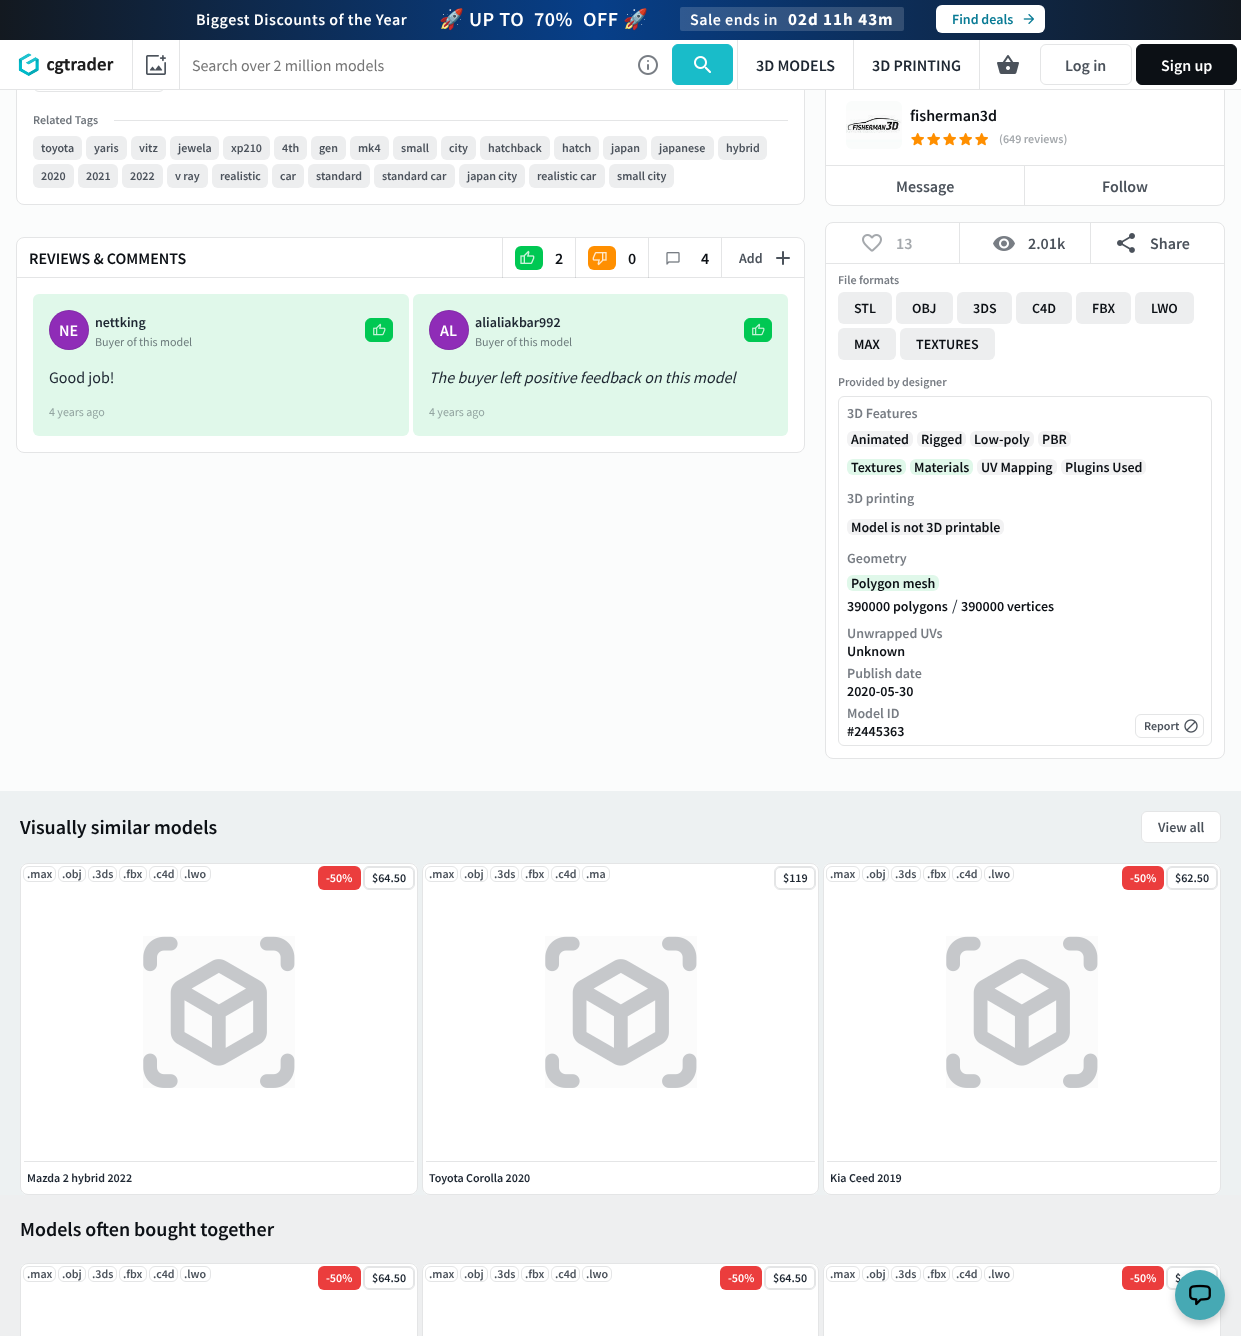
<svg xmlns="http://www.w3.org/2000/svg" xmlns:xlink="http://www.w3.org/1999/xlink" width="1241" height="1336" viewBox="0 0 1241 1336">
<style>
.cls-1{font:600 16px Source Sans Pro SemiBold;letter-spacing:0.5px;fill:#ffffff}
.cls-2{font:bold 20px Noto Color Emoji;letter-spacing:0.5px;fill:#ffffff}
.cls-3{font:600 20px Source Sans Pro SemiBold;letter-spacing:0.5px;fill:#ffffff}
.cls-4{font:bold 17px Source Sans Pro;letter-spacing:1px;fill:#ffffff}
.cls-5{font:600 14px Source Sans Pro SemiBold;fill:#097b95}
.cls-6{font:16px Source Sans Pro;fill:#757575}
.cls-7{font:600 16px Source Sans Pro SemiBold;fill:#1e2732}
.cls-8{font:600 16px Source Sans Pro SemiBold;fill:#4b525b}
.cls-9{font:600 16px Source Sans Pro SemiBold;fill:#ffffff}
.cls-10{font:600 12px Source Sans Pro SemiBold;fill:#6f757c}
.cls-11{font:600 12px Source Sans Pro SemiBold;fill:#4b525b}
.cls-12{font:600 16px Source Sans Pro SemiBold;fill:#0c1015}
.cls-13{font:600 14px Source Sans Pro SemiBold;fill:#4b525b}
.cls-14{font:600 14px Source Sans Pro SemiBold;fill:#1e2732}
.cls-15{font:12px Source Sans Pro;fill:#6c7b7c}
.cls-16{font:16px Source Sans Pro;fill:#1e2732}
.cls-17{font:12px Source Sans Pro;fill:#92a4a0}
.cls-18{font:italic 16px Source Sans Pro;fill:#1e2732}
.cls-19{font:600 12px Source Sans Pro SemiBold;fill:#a5a9ad}
.cls-20{font:600 16px Source Sans Pro SemiBold;fill:#a5a9ad}
.cls-21{font:600 12px Source Sans Pro SemiBold;fill:#787d84}
.cls-22{font:600 14px Source Sans Pro SemiBold;fill:#0c1015}
.cls-23{font:600 14px Source Sans Pro SemiBold;fill:#787d84}
.cls-24{font:600 20px Source Sans Pro SemiBold;fill:#0c1015}
.cls-25{font:600 12px Source Sans Pro SemiBold;fill:#ffffff}
.cls-26{font:600 12px Source Sans Pro SemiBold;fill:#1e2732}
</style>
<defs>
<linearGradient id="g1" gradientUnits="userSpaceOnUse" x1="0" y1="19" x2="1241" y2="19"><stop offset="0" stop-color="#131920"/><stop offset="0.48" stop-color="#073f89"/><stop offset="1" stop-color="#131920"/></linearGradient>
</defs>
<rect width="100%" height="100%" fill="#fbfcfc"/>
<rect fill="#ffffff" stroke="#e4e5e6" x="16.5" y="-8.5" width="788" height="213" rx="7.5"/>
<rect fill="none" stroke="#e4e5e6" x="33.5" y="60.5" width="131" height="31" rx="5.5"/>
<rect fill="#ffffff" stroke="#e4e5e6" x="825.5" y="64.5" width="399" height="141" rx="7.5"/>
<rect fill="#ffffff" x="0" y="40" width="1241" height="49"/>
<rect fill="url(#g1)" x="0" y="0" width="1241" height="40"/>
<rect fill="#ffffff" fill-opacity="0.16" x="680" y="7" width="224" height="24" rx="2"/>
<rect fill="#ffffff" x="936" y="5" width="109" height="28" rx="6"/>
<image xlink:href="image0.png" x="1023" y="14" width="11" height="10"/>
<rect fill="#e4e5e6" x="0" y="89" width="1241" height="1"/>
<image xlink:href="image1.png" x="18" y="53" width="96" height="23"/>
<rect fill="#e4e5e6" x="737" y="40" width="1" height="49"/>
<rect fill="#e4e5e6" x="132" y="40" width="1" height="49"/>
<rect fill="#e4e5e6" x="179" y="40" width="1" height="49"/>
<image xlink:href="image2.png" x="146" y="55" width="20" height="20"/>
<image xlink:href="image3.png" x="638" y="55" width="20" height="20"/>
<rect fill="#19bcc9" stroke="#19bcc9" x="672.5" y="44.5" width="60" height="40" rx="5.5"/>
<image xlink:href="image4.png" x="694" y="56" width="17" height="17"/>
<rect fill="#e4e5e6" x="853" y="40" width="1" height="49"/>
<rect fill="#e4e5e6" x="979" y="40" width="1" height="49"/>
<image xlink:href="image5.png" x="997" y="55" width="22" height="19"/>
<rect fill="none" stroke="#e4e5e6" x="1040.5" y="44.5" width="91" height="40" rx="5.5"/>
<rect fill="#0c1015" stroke="#0c1015" x="1136.5" y="44.5" width="100" height="40" rx="5.5"/>
<rect fill="#e4e5e6" x="114" y="120" width="674" height="1"/>
<rect fill="#edeeef" x="33" y="136" width="49" height="24" rx="6"/>
<rect fill="#edeeef" x="86" y="136" width="41" height="24" rx="6"/>
<rect fill="#edeeef" x="131" y="136" width="35" height="24" rx="6"/>
<rect fill="#edeeef" x="170" y="136" width="49" height="24" rx="6"/>
<rect fill="#edeeef" x="223" y="136" width="47" height="24" rx="6"/>
<rect fill="#edeeef" x="274" y="136" width="33" height="24" rx="6"/>
<rect fill="#edeeef" x="311" y="136" width="35" height="24" rx="6"/>
<rect fill="#edeeef" x="350" y="136" width="39" height="24" rx="6"/>
<rect fill="#edeeef" x="393" y="136" width="44" height="24" rx="6"/>
<rect fill="#edeeef" x="441" y="136" width="35" height="24" rx="6"/>
<rect fill="#edeeef" x="480" y="136" width="70" height="24" rx="6"/>
<rect fill="#edeeef" x="554" y="136" width="45" height="24" rx="6"/>
<rect fill="#edeeef" x="603" y="136" width="44" height="24" rx="6"/>
<rect fill="#edeeef" x="651" y="136" width="63" height="24" rx="6"/>
<rect fill="#edeeef" x="718" y="136" width="49" height="24" rx="6"/>
<rect fill="#edeeef" x="33" y="164" width="41" height="24" rx="6"/>
<rect fill="#edeeef" x="78" y="164" width="40" height="24" rx="6"/>
<rect fill="#edeeef" x="122" y="164" width="41" height="24" rx="6"/>
<rect fill="#edeeef" x="167" y="164" width="41" height="24" rx="6"/>
<rect fill="#edeeef" x="212" y="164" width="56" height="24" rx="6"/>
<rect fill="#edeeef" x="272" y="164" width="32" height="24" rx="6"/>
<rect fill="#edeeef" x="308" y="164" width="62" height="24" rx="6"/>
<rect fill="#edeeef" x="374" y="164" width="81" height="24" rx="6"/>
<rect fill="#edeeef" x="459" y="164" width="66" height="24" rx="6"/>
<rect fill="#edeeef" x="529" y="164" width="76" height="24" rx="6"/>
<rect fill="#edeeef" x="609" y="164" width="65" height="24" rx="6"/>
<rect fill="#ffffff" x="16" y="237" width="789" height="216" rx="8"/>
<rect fill="#e4e5e6" x="648" y="238" width="1" height="40"/>
<rect fill="#e4e5e6" x="575" y="238" width="1" height="40"/>
<rect fill="#e4e5e6" x="502" y="238" width="1" height="40"/>
<rect fill="none" stroke="#e4e5e6" x="16.5" y="237.5" width="788" height="215" rx="7.5"/>
<rect fill="#e4e5e6" x="17" y="277" width="787" height="1"/>
<rect fill="#ccced0" x="648" y="277" width="1" height="1"/>
<rect fill="#ccced0" x="575" y="277" width="1" height="1"/>
<rect fill="#ccced0" x="502" y="277" width="1" height="1"/>
<rect fill="#00c853" x="515" y="246" width="28" height="24" rx="6"/>
<image xlink:href="image6.png" x="520" y="250" width="15" height="14"/>
<rect fill="#ff8f00" x="588" y="246" width="28" height="24" rx="6"/>
<image xlink:href="image7.png" x="592" y="252" width="15" height="14"/>
<image xlink:href="image8.png" x="666" y="252" width="14" height="13"/>
<rect fill="#e4e5e6" x="721" y="238" width="1" height="39"/>
<image xlink:href="image9.png" x="776" y="251" width="14" height="14"/>
<rect fill="#e0f8ea" x="33" y="294" width="376" height="142" rx="6"/>
<circle fill="#8f2cb7" cx="69" cy="330" r="20"/>
<circle fill="none" stroke="#1e2732" stroke-opacity="0.12" cx="69" cy="330" r="19.5"/>
<rect fill="#00c853" stroke="#00c853" x="365.5" y="318.5" width="27" height="23" rx="5.5"/>
<image xlink:href="image10.png" x="373" y="323" width="13" height="13"/>
<rect fill="#e0f8ea" x="413" y="294" width="375" height="142" rx="6"/>
<circle fill="#8f2cb7" cx="449" cy="330" r="20"/>
<circle fill="none" stroke="#1e2732" stroke-opacity="0.12" cx="449" cy="330" r="19.5"/>
<rect fill="#00c853" stroke="#00c853" x="744.5" y="318.5" width="27" height="23" rx="5.5"/>
<image xlink:href="image10.png" x="752" y="323" width="13" height="13"/>
<image xlink:href="image11.png" x="846" y="101" width="56" height="48"/>
<image xlink:href="image12.png" x="911" y="133" width="13" height="13"/>
<image xlink:href="image12.png" x="927" y="133" width="13" height="13"/>
<image xlink:href="image12.png" x="943" y="133" width="13" height="13"/>
<image xlink:href="image12.png" x="959" y="133" width="13" height="13"/>
<image xlink:href="image12.png" x="975" y="133" width="13" height="13"/>
<path fill="#e4e5e6" d="M826 165H1025L1024 166H826Z"/>
<path fill="#1e2732" fill-opacity="0.12" d="M1025 165V205H1024V166Z"/>
<rect fill="#e4e5e6" x="1025" y="165" width="199" height="1"/>
<rect fill="#ffffff" stroke="#e4e5e6" x="825.5" y="222.5" width="399" height="536" rx="7.5"/>
<rect fill="#e4e5e6" x="826" y="263" width="398" height="1"/>
<image xlink:href="image13.png" x="862" y="234" width="20" height="18"/>
<rect fill="#e4e5e6" x="1090" y="223" width="1" height="40"/>
<rect fill="#e4e5e6" x="959" y="223" width="1" height="40"/>
<image xlink:href="image14.png" x="993" y="236" width="22" height="15"/>
<image xlink:href="image15.png" x="1117" y="233" width="18" height="20"/>
<rect fill="#edeeef" x="838" y="292" width="54" height="32" rx="6"/>
<rect fill="#edeeef" x="896" y="292" width="57" height="32" rx="6"/>
<rect fill="#edeeef" x="957" y="292" width="55" height="32" rx="6"/>
<rect fill="#edeeef" x="1016" y="292" width="56" height="32" rx="6"/>
<rect fill="#edeeef" x="1076" y="292" width="55" height="32" rx="6"/>
<rect fill="#edeeef" x="1135" y="292" width="59" height="32" rx="6"/>
<rect fill="#edeeef" x="838" y="328" width="58" height="32" rx="6"/>
<rect fill="#edeeef" x="900" y="328" width="95" height="32" rx="6"/>
<rect fill="none" stroke="#e4e5e6" x="838.5" y="396.5" width="373" height="349" rx="5.5"/>
<rect fill="#f2f2f3" x="847" y="431" width="66" height="16" rx="6"/>
<rect fill="#f2f2f3" x="917" y="431" width="49" height="16" rx="6"/>
<rect fill="#f2f2f3" x="970" y="431" width="64" height="16" rx="6"/>
<rect fill="#f2f2f3" x="1038" y="431" width="33" height="16" rx="6"/>
<rect fill="#e0f8ea" x="847" y="459" width="59" height="16" rx="6"/>
<rect fill="#e0f8ea" x="910" y="459" width="63" height="16" rx="6"/>
<rect fill="#f2f2f3" x="977" y="459" width="80" height="16" rx="6"/>
<rect fill="#f2f2f3" x="1061" y="459" width="85" height="16" rx="6"/>
<rect fill="#f2f2f3" x="847" y="519" width="157" height="16" rx="6"/>
<rect fill="#e0f8ea" x="847" y="575" width="92" height="16" rx="6"/>
<rect fill="none" stroke="#e4e5e6" x="1135.5" y="714.5" width="68" height="23" rx="5.5"/>
<image xlink:href="image16.png" x="1184" y="719" width="14" height="14"/>
<rect fill="#edf1f2" x="0" y="791" width="1241" height="404"/>
<rect fill="#ffffff" x="1141" y="811" width="80" height="32" rx="6"/>
<rect fill="none" stroke="#1e2732" stroke-opacity="0.12" x="1141.5" y="811.5" width="79" height="31" rx="5.5"/>
<rect fill="#ffffff" x="20" y="863" width="398" height="332" rx="8"/>
<rect fill="none" stroke="#1e2732" stroke-opacity="0.12" x="20.5" y="863.5" width="397" height="331" rx="7.5"/>
<rect fill="none" stroke="#e4e5e6" x="23.5" y="866.5" width="32" height="15" rx="5.5"/>
<rect fill="none" stroke="#e4e5e6" x="58.5" y="866.5" width="27" height="15" rx="5.5"/>
<rect fill="none" stroke="#e4e5e6" x="88.5" y="866.5" width="28" height="15" rx="5.5"/>
<rect fill="none" stroke="#e4e5e6" x="119.5" y="866.5" width="27" height="15" rx="5.5"/>
<rect fill="none" stroke="#e4e5e6" x="149.5" y="866.5" width="28" height="15" rx="5.5"/>
<rect fill="none" stroke="#e4e5e6" x="180.5" y="866.5" width="30" height="15" rx="5.5"/>
<rect fill="#eb3d3d" x="318" y="866" width="43" height="24" rx="6"/>
<rect fill="none" stroke="#e4e5e6" x="364.5" y="867.5" width="49" height="21" rx="4.5"/>
<rect fill="none" stroke="#1e2732" stroke-opacity="0.12" x="363.5" y="866.5" width="51" height="23" rx="5.5"/>
<image xlink:href="image17.png" x="143" y="936" width="152" height="152"/>
<rect fill="#e4e5e6" x="24" y="1161" width="390" height="1"/>
<rect fill="#ffffff" x="422" y="863" width="397" height="332" rx="8"/>
<rect fill="none" stroke="#1e2732" stroke-opacity="0.12" x="422.5" y="863.5" width="396" height="331" rx="7.5"/>
<rect fill="none" stroke="#e4e5e6" x="425.5" y="866.5" width="32" height="15" rx="5.5"/>
<rect fill="none" stroke="#e4e5e6" x="460.5" y="866.5" width="27" height="15" rx="5.5"/>
<rect fill="none" stroke="#e4e5e6" x="490.5" y="866.5" width="28" height="15" rx="5.5"/>
<rect fill="none" stroke="#e4e5e6" x="521.5" y="866.5" width="27" height="15" rx="5.5"/>
<rect fill="none" stroke="#e4e5e6" x="551.5" y="866.5" width="28" height="15" rx="5.5"/>
<rect fill="none" stroke="#e4e5e6" x="582.5" y="866.5" width="27" height="15" rx="5.5"/>
<rect fill="none" stroke="#e4e5e6" x="775.5" y="867.5" width="39" height="21" rx="4.5"/>
<rect fill="none" stroke="#1e2732" stroke-opacity="0.12" x="774.5" y="866.5" width="41" height="23" rx="5.5"/>
<image xlink:href="image18.png" x="545" y="936" width="152" height="152"/>
<rect fill="#e4e5e6" x="426" y="1161" width="389" height="1"/>
<rect fill="#ffffff" x="823" y="863" width="398" height="332" rx="8"/>
<rect fill="none" stroke="#1e2732" stroke-opacity="0.12" x="823.5" y="863.5" width="397" height="331" rx="7.5"/>
<rect fill="none" stroke="#e4e5e6" x="826.5" y="866.5" width="33" height="15" rx="5.5"/>
<rect fill="none" stroke="#e4e5e6" x="862.5" y="866.5" width="26" height="15" rx="5.5"/>
<rect fill="none" stroke="#e4e5e6" x="891.5" y="866.5" width="29" height="15" rx="5.5"/>
<rect fill="none" stroke="#e4e5e6" x="923.5" y="866.5" width="26" height="15" rx="5.5"/>
<rect fill="none" stroke="#e4e5e6" x="952.5" y="866.5" width="29" height="15" rx="5.5"/>
<rect fill="none" stroke="#e4e5e6" x="984.5" y="866.5" width="29" height="15" rx="5.5"/>
<rect fill="#eb3d3d" x="1122" y="866" width="42" height="24" rx="6"/>
<rect fill="none" stroke="#e4e5e6" x="1167.5" y="867.5" width="49" height="21" rx="4.5"/>
<rect fill="none" stroke="#1e2732" stroke-opacity="0.12" x="1166.5" y="866.5" width="51" height="23" rx="5.5"/>
<image xlink:href="image17.png" x="946" y="936" width="152" height="152"/>
<rect fill="#e4e5e6" x="827" y="1161" width="390" height="1"/>
<rect fill="#eeeff0" x="0" y="1195" width="1241" height="141"/>
<rect fill="#ffffff" x="20" y="1263" width="398" height="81" rx="8"/>
<rect fill="none" stroke="#1e2732" stroke-opacity="0.12" x="20.5" y="1263.5" width="397" height="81" rx="7.5"/>
<rect fill="none" stroke="#e4e5e6" x="23.5" y="1266.5" width="32" height="15" rx="5.5"/>
<rect fill="none" stroke="#e4e5e6" x="58.5" y="1266.5" width="27" height="15" rx="5.5"/>
<rect fill="none" stroke="#e4e5e6" x="88.5" y="1266.5" width="28" height="15" rx="5.5"/>
<rect fill="none" stroke="#e4e5e6" x="119.5" y="1266.5" width="27" height="15" rx="5.5"/>
<rect fill="none" stroke="#e4e5e6" x="149.5" y="1266.5" width="28" height="15" rx="5.5"/>
<rect fill="none" stroke="#e4e5e6" x="180.5" y="1266.5" width="30" height="15" rx="5.5"/>
<rect fill="#eb3d3d" x="318" y="1266" width="43" height="24" rx="6"/>
<rect fill="none" stroke="#e4e5e6" x="364.5" y="1267.5" width="49" height="21" rx="4.5"/>
<rect fill="none" stroke="#1e2732" stroke-opacity="0.12" x="363.5" y="1266.5" width="51" height="23" rx="5.5"/>
<rect fill="#ffffff" x="422" y="1263" width="397" height="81" rx="8"/>
<rect fill="none" stroke="#1e2732" stroke-opacity="0.12" x="422.5" y="1263.5" width="396" height="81" rx="7.5"/>
<rect fill="none" stroke="#e4e5e6" x="425.5" y="1266.5" width="32" height="15" rx="5.5"/>
<rect fill="none" stroke="#e4e5e6" x="460.5" y="1266.5" width="27" height="15" rx="5.5"/>
<rect fill="none" stroke="#e4e5e6" x="490.5" y="1266.5" width="28" height="15" rx="5.5"/>
<rect fill="none" stroke="#e4e5e6" x="521.5" y="1266.5" width="27" height="15" rx="5.5"/>
<rect fill="none" stroke="#e4e5e6" x="551.5" y="1266.5" width="28" height="15" rx="5.5"/>
<rect fill="none" stroke="#e4e5e6" x="582.5" y="1266.5" width="29" height="15" rx="5.5"/>
<rect fill="#eb3d3d" x="720" y="1266" width="42" height="24" rx="6"/>
<rect fill="none" stroke="#e4e5e6" x="765.5" y="1267.5" width="49" height="21" rx="4.5"/>
<rect fill="none" stroke="#1e2732" stroke-opacity="0.12" x="764.5" y="1266.5" width="51" height="23" rx="5.5"/>
<rect fill="#ffffff" x="823" y="1263" width="398" height="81" rx="8"/>
<rect fill="none" stroke="#1e2732" stroke-opacity="0.12" x="823.5" y="1263.5" width="397" height="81" rx="7.5"/>
<rect fill="none" stroke="#e4e5e6" x="826.5" y="1266.5" width="33" height="15" rx="5.5"/>
<rect fill="none" stroke="#e4e5e6" x="862.5" y="1266.5" width="26" height="15" rx="5.5"/>
<rect fill="none" stroke="#e4e5e6" x="891.5" y="1266.5" width="29" height="15" rx="5.5"/>
<rect fill="none" stroke="#e4e5e6" x="923.5" y="1266.5" width="26" height="15" rx="5.5"/>
<rect fill="none" stroke="#e4e5e6" x="952.5" y="1266.5" width="29" height="15" rx="5.5"/>
<rect fill="none" stroke="#e4e5e6" x="984.5" y="1266.5" width="29" height="15" rx="5.5"/>
<rect fill="#eb3d3d" x="1122" y="1266" width="42" height="24" rx="6"/>
<rect fill="none" stroke="#e4e5e6" x="1167.5" y="1267.5" width="49" height="21" rx="4.5"/>
<rect fill="none" stroke="#1e2732" stroke-opacity="0.12" x="1166.5" y="1266.5" width="51" height="23" rx="5.5"/>
<rect fill="#000000" fill-opacity="0.2" filter="blur(4px)" x="1175" y="1274" width="50" height="50" rx="25"/>
<text class="cls-1" x="196" y="25">Biggest Discounts of the Year</text>
<text class="cls-2" x="439" y="26">🚀</text>
<text class="cls-3" x="469" y="26">UP TO</text>
<text class="cls-3" x="534" y="26">70%</text>
<text class="cls-3" x="583" y="26">OFF</text>
<text class="cls-2" x="623" y="26">🚀</text>
<text class="cls-1" x="690" y="25">Sale ends in</text>
<text class="cls-4" x="788" y="25">02d 11h 43m</text>
<text class="cls-5" x="952" y="24">Find deals</text>
<text class="cls-6" x="192" y="71">Search over 2 million models</text>
<text class="cls-7" x="756" y="71">3D MODELS</text>
<text class="cls-7" x="872" y="71">3D PRINTING</text>
<text class="cls-8" x="1065" y="71">Log in</text>
<text class="cls-9" x="1161" y="71">Sign up</text>
<text class="cls-10" x="33" y="124">Related Tags</text>
<text class="cls-11" x="41" y="152">toyota</text>
<text class="cls-11" x="94" y="152">yaris</text>
<text class="cls-11" x="139" y="152">vitz</text>
<text class="cls-11" x="178" y="152">jewela</text>
<text class="cls-11" x="231" y="152">xp210</text>
<text class="cls-11" x="282" y="152">4th</text>
<text class="cls-11" x="319" y="152">gen</text>
<text class="cls-11" x="358" y="152">mk4</text>
<text class="cls-11" x="401" y="152">small</text>
<text class="cls-11" x="449" y="152">city</text>
<text class="cls-11" x="488" y="152">hatchback</text>
<text class="cls-11" x="562" y="152">hatch</text>
<text class="cls-11" x="611" y="152">japan</text>
<text class="cls-11" x="659" y="152">japanese</text>
<text class="cls-11" x="726" y="152">hybrid</text>
<text class="cls-11" x="41" y="180">2020</text>
<text class="cls-11" x="86" y="180">2021</text>
<text class="cls-11" x="130" y="180">2022</text>
<text class="cls-11" x="175" y="180">v ray</text>
<text class="cls-11" x="220" y="180">realistic</text>
<text class="cls-11" x="280" y="180">car</text>
<text class="cls-11" x="316" y="180">standard</text>
<text class="cls-11" x="382" y="180">standard car</text>
<text class="cls-11" x="467" y="180">japan city</text>
<text class="cls-11" x="537" y="180">realistic car</text>
<text class="cls-11" x="617" y="180">small city</text>
<text class="cls-12" x="29" y="264">REVIEWS &amp; COMMENTS</text>
<text class="cls-12" x="555" y="264">2</text>
<text class="cls-12" x="628" y="264">0</text>
<text class="cls-12" x="701" y="264">4</text>
<text class="cls-13" x="739" y="263">Add</text>
<text class="cls-9" x="59" y="336">NE</text>
<text class="cls-14" x="95" y="327">nettking</text>
<text class="cls-15" x="95" y="346">Buyer of this model</text>
<text class="cls-16" x="49" y="383">Good job!</text>
<text class="cls-17" x="49" y="416">4 years ago</text>
<text class="cls-9" x="440" y="336">AL</text>
<text class="cls-14" x="475" y="327">alialiakbar992</text>
<text class="cls-15" x="475" y="346">Buyer of this model</text>
<text class="cls-18" x="429" y="383">The buyer left positive feedback on this model</text>
<text class="cls-17" x="429" y="416">4 years ago</text>
<text class="cls-12" x="910" y="121">fisherman3d</text>
<text class="cls-19" x="999" y="143">(649 reviews)</text>
<text class="cls-8" x="896" y="192">Message</text>
<text class="cls-8" x="1102" y="192">Follow</text>
<text class="cls-20" x="896" y="249">13</text>
<text class="cls-8" x="1028" y="249">2.01k</text>
<text class="cls-8" x="1150" y="249">Share</text>
<text class="cls-21" x="838" y="284">File formats</text>
<text class="cls-22" x="854" y="313">STL</text>
<text class="cls-22" x="912" y="313">OBJ</text>
<text class="cls-22" x="973" y="313">3DS</text>
<text class="cls-22" x="1032" y="313">C4D</text>
<text class="cls-22" x="1092" y="313">FBX</text>
<text class="cls-22" x="1151" y="313">LWO</text>
<text class="cls-22" x="854" y="349">MAX</text>
<text class="cls-22" x="916" y="349">TEXTURES</text>
<text class="cls-21" x="838" y="386">Provided by designer</text>
<text class="cls-23" x="847" y="418">3D Features</text>
<text class="cls-22" x="851" y="444">Animated</text>
<text class="cls-22" x="921" y="444">Rigged</text>
<text class="cls-22" x="974" y="444">Low-poly</text>
<text class="cls-22" x="1042" y="444">PBR</text>
<text class="cls-22" x="851" y="472">Textures</text>
<text class="cls-22" x="914" y="472">Materials</text>
<text class="cls-22" x="981" y="472">UV Mapping</text>
<text class="cls-22" x="1065" y="472">Plugins Used</text>
<text class="cls-23" x="847" y="503">3D printing</text>
<text class="cls-22" x="851" y="532">Model is not 3D printable</text>
<text class="cls-23" x="847" y="563">Geometry</text>
<text class="cls-22" x="851" y="588">Polygon mesh</text>
<text class="cls-22" x="847" y="611">390000 polygons</text>
<text class="cls-16" x="952" y="611">/</text>
<text class="cls-22" x="961" y="611">390000 vertices</text>
<text class="cls-23" x="847" y="638">Unwrapped UVs</text>
<text class="cls-22" x="847" y="656">Unknown</text>
<text class="cls-23" x="847" y="678">Publish date</text>
<text class="cls-22" x="847" y="696">2020-05-30</text>
<text class="cls-23" x="847" y="718">Model ID</text>
<text class="cls-22" x="847" y="736">#2445363</text>
<text class="cls-11" x="1144" y="730">Report</text>
<text class="cls-24" x="20" y="834">Visually similar models</text>
<text class="cls-13" x="1158" y="832">View all</text>
<text class="cls-11" x="27" y="878">.max</text>
<text class="cls-11" x="62" y="878">.obj</text>
<text class="cls-11" x="92" y="878">.3ds</text>
<text class="cls-11" x="123" y="878">.fbx</text>
<text class="cls-11" x="153" y="878">.c4d</text>
<text class="cls-11" x="184" y="878">.lwo</text>
<text class="cls-25" x="326" y="882">-50%</text>
<text class="cls-26" x="372" y="882">$64.50</text>
<text class="cls-26" x="27" y="1182">Mazda 2 hybrid 2022</text>
<text class="cls-11" x="429" y="878">.max</text>
<text class="cls-11" x="464" y="878">.obj</text>
<text class="cls-11" x="494" y="878">.3ds</text>
<text class="cls-11" x="525" y="878">.fbx</text>
<text class="cls-11" x="555" y="878">.c4d</text>
<text class="cls-11" x="586" y="878">.ma</text>
<text class="cls-26" x="783" y="882">$119</text>
<text class="cls-26" x="429" y="1182">Toyota Corolla 2020</text>
<text class="cls-11" x="830" y="878">.max</text>
<text class="cls-11" x="866" y="878">.obj</text>
<text class="cls-11" x="895" y="878">.3ds</text>
<text class="cls-11" x="927" y="878">.fbx</text>
<text class="cls-11" x="956" y="878">.c4d</text>
<text class="cls-11" x="988" y="878">.lwo</text>
<text class="cls-25" x="1130" y="882">-50%</text>
<text class="cls-26" x="1175" y="882">$62.50</text>
<text class="cls-26" x="830" y="1182">Kia Ceed 2019</text>
<text class="cls-24" x="20" y="1236">Models often bought together</text>
<text class="cls-11" x="27" y="1278">.max</text>
<text class="cls-11" x="62" y="1278">.obj</text>
<text class="cls-11" x="92" y="1278">.3ds</text>
<text class="cls-11" x="123" y="1278">.fbx</text>
<text class="cls-11" x="153" y="1278">.c4d</text>
<text class="cls-11" x="184" y="1278">.lwo</text>
<text class="cls-25" x="326" y="1282">-50%</text>
<text class="cls-26" x="372" y="1282">$64.50</text>
<text class="cls-11" x="429" y="1278">.max</text>
<text class="cls-11" x="464" y="1278">.obj</text>
<text class="cls-11" x="494" y="1278">.3ds</text>
<text class="cls-11" x="525" y="1278">.fbx</text>
<text class="cls-11" x="555" y="1278">.c4d</text>
<text class="cls-11" x="586" y="1278">.lwo</text>
<text class="cls-25" x="728" y="1282">-50%</text>
<text class="cls-26" x="773" y="1282">$64.50</text>
<text class="cls-11" x="830" y="1278">.max</text>
<text class="cls-11" x="866" y="1278">.obj</text>
<text class="cls-11" x="895" y="1278">.3ds</text>
<text class="cls-11" x="927" y="1278">.fbx</text>
<text class="cls-11" x="956" y="1278">.c4d</text>
<text class="cls-11" x="988" y="1278">.lwo</text>
<text class="cls-25" x="1130" y="1282">-50%</text>
<text class="cls-26" x="1175" y="1282">$</text>
<circle fill="#46a9b4" cx="1200" cy="1295" r="25"/>
<image xlink:href="image19.png" x="1189" y="1284" width="22" height="22"/>
</svg>
